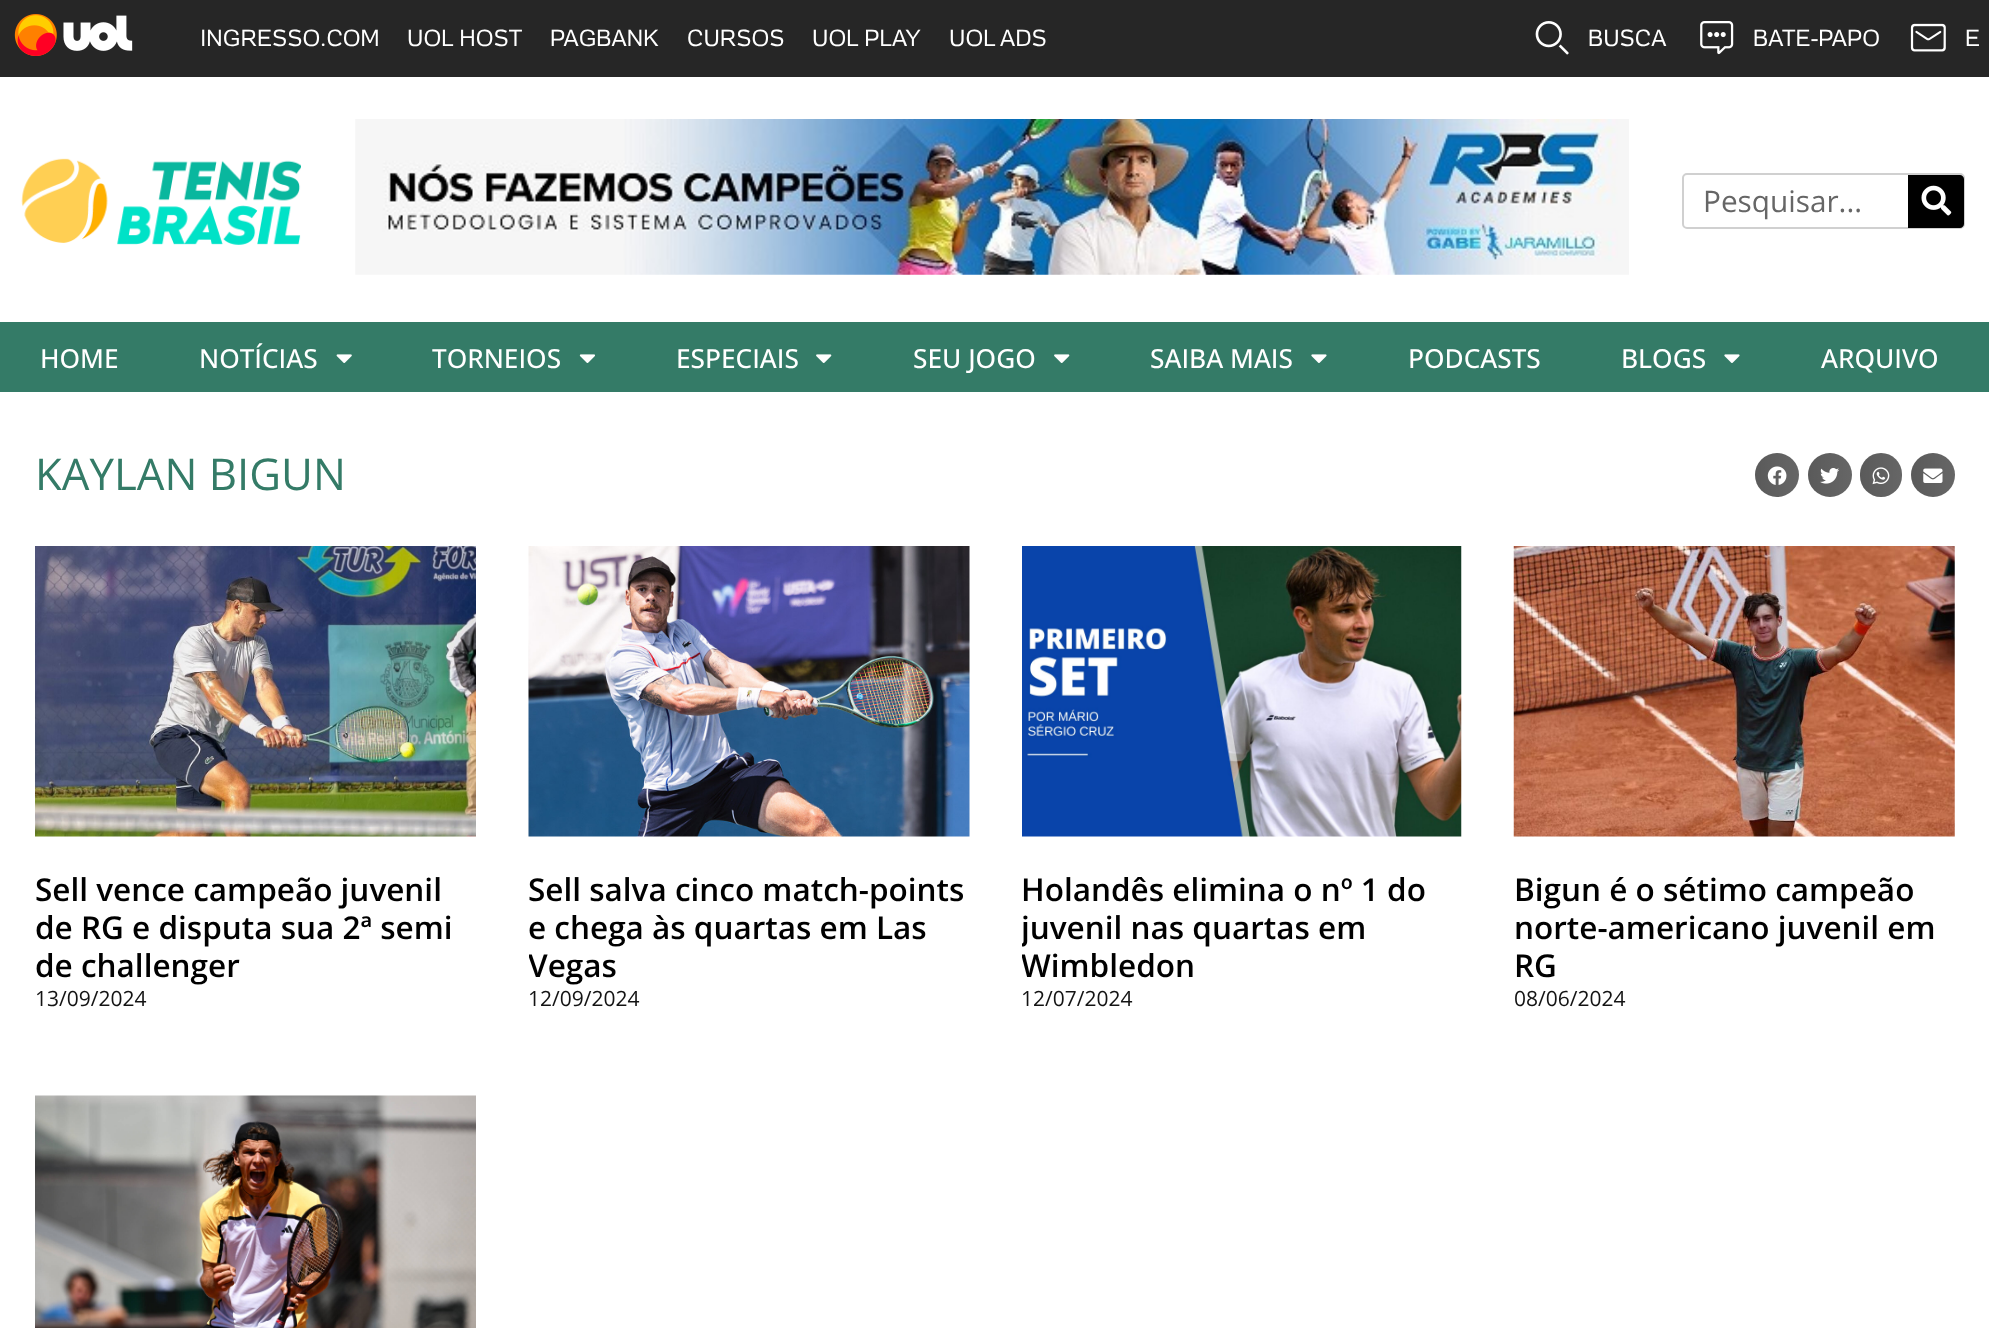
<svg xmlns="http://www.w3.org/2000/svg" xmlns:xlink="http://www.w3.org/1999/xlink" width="1989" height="1328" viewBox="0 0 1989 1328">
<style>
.cls-1{font:22.75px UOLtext;fill:#ffffff}
.cls-2{font:29.75px Open Sans;fill:#666666}
.cls-3{font:500 26.25px Open Sans;fill:#ffffff}
.cls-4{font:43.75px Open Sans;fill:#347b67}
.cls-5{font:600 31.5px Open Sans;fill:#000000}
.cls-6{font:21px Open Sans;fill:#131313}
</style>
<defs>
<linearGradient id="g1" gradientUnits="userSpaceOnUse" x1="1755" y1="475" x2="1799" y2="475"><stop offset="0" stop-color="#000000" stop-opacity="0.12"/><stop offset="1" stop-color="#000000" stop-opacity="0"/></linearGradient>
<linearGradient id="g2" gradientUnits="userSpaceOnUse" x1="1808" y1="475" x2="1852" y2="475"><stop offset="0" stop-color="#000000" stop-opacity="0.12"/><stop offset="1" stop-color="#000000" stop-opacity="0"/></linearGradient>
<linearGradient id="g3" gradientUnits="userSpaceOnUse" x1="1860" y1="475" x2="1902" y2="475"><stop offset="0" stop-color="#000000" stop-opacity="0.12"/><stop offset="1" stop-color="#000000" stop-opacity="0"/></linearGradient>
<linearGradient id="g4" gradientUnits="userSpaceOnUse" x1="1911" y1="475" x2="1955" y2="475"><stop offset="0" stop-color="#000000" stop-opacity="0.12"/><stop offset="1" stop-color="#000000" stop-opacity="0"/></linearGradient>
<clipPath id="clip1"><rect x="529" y="546" width="441" height="488"/></clipPath>
<clipPath id="clip2"><rect x="1022" y="546" width="439" height="488"/></clipPath>
</defs>
<rect width="100%" height="100%" fill="#ffffff"/>
<rect fill="#262626" x="0" y="0" width="1989" height="77"/>
<image xlink:href="image0.png" x="14" y="14" width="119" height="42"/>
<image xlink:href="image1.png" x="1535" y="21" width="34" height="34"/>
<image xlink:href="image2.png" x="1700" y="21" width="34" height="34"/>
<image xlink:href="image3.png" x="1910" y="23" width="36" height="29"/>
<image xlink:href="image4.png" x="21" y="158" width="280" height="87"/>
<image xlink:href="image5.png" x="355" y="119" width="1274" height="156"/>
<rect fill="none" stroke="#d0d0d0" stroke-width="2" x="1683" y="174" width="281" height="54" rx="4"/>
<path fill="#000000" d="M1908 175H1960C1962 175 1964 177 1964 179V224C1964 226 1962 228 1960 228H1908Z"/>
<image xlink:href="image6.png" x="1921" y="185" width="31" height="31"/>
<rect fill="#347b67" x="0" y="322" width="1989" height="70"/>
<image xlink:href="image7.png" x="336" y="354" width="16" height="9"/>
<image xlink:href="image8.png" x="579" y="354" width="16" height="9"/>
<image xlink:href="image9.png" x="816" y="354" width="16" height="9"/>
<image xlink:href="image9.png" x="1054" y="354" width="16" height="9"/>
<image xlink:href="image10.png" x="1311" y="354" width="16" height="9"/>
<image xlink:href="image10.png" x="1724" y="354" width="16" height="9"/>
<circle fill="#666666" cx="1777" cy="475" r="22"/>
<circle fill="url(#g1)" cx="1777" cy="475" r="22"/>
<image xlink:href="image11.png" x="1767" y="466" width="20" height="19"/>
<circle fill="#666666" cx="1830" cy="475" r="22"/>
<circle fill="url(#g2)" cx="1830" cy="475" r="22"/>
<image xlink:href="image12.png" x="1820" y="468" width="19" height="16"/>
<rect fill="#666666" x="1860" y="453" width="42" height="44" rx="21"/>
<rect fill="url(#g3)" x="1860" y="453" width="42" height="44" rx="21"/>
<image xlink:href="image13.png" x="1872" y="467" width="18" height="18"/>
<circle fill="#666666" cx="1933" cy="475" r="22"/>
<circle fill="url(#g4)" cx="1933" cy="475" r="22"/>
<image xlink:href="image14.png" x="1923" y="468" width="20" height="15"/>
<image xlink:href="image15.png" x="35" y="546" width="441" height="291"/>
<image xlink:href="image16.png" x="528" y="546" width="442" height="291"/>
<image xlink:href="image17.png" x="1022" y="546" width="440" height="291"/>
<image xlink:href="image18.png" x="1513" y="546" width="442" height="291"/>
<image xlink:href="image19.png" x="35" y="1095" width="441" height="233"/>
<text class="cls-1" x="200" y="46">INGRESSO.COM</text>
<text class="cls-1" x="407" y="46">UOL HOST</text>
<text class="cls-1" x="550" y="46">PAGBANK</text>
<text class="cls-1" x="687" y="46">CURSOS</text>
<text class="cls-1" x="812" y="46">UOL PLAY</text>
<text class="cls-1" x="949" y="46">UOL ADS</text>
<text class="cls-1" x="1588" y="46">BUSCA</text>
<text class="cls-1" x="1753" y="46">BATE-PAPO</text>
<text class="cls-1" x="1965" y="46">E</text>
<text class="cls-2" x="1703" y="212">Pesquisar...</text>
<text class="cls-3" x="40" y="368">HOME</text>
<text class="cls-3" x="199" y="368">NOTÍCIAS</text>
<text class="cls-3" x="432" y="368">TORNEIOS</text>
<text class="cls-3" x="676" y="368">ESPECIAIS</text>
<text class="cls-3" x="913" y="368">SEU JOGO</text>
<text class="cls-3" x="1150" y="368">SAIBA MAIS</text>
<text class="cls-3" x="1408" y="368">PODCASTS</text>
<text class="cls-3" x="1621" y="368">BLOGS</text>
<text class="cls-3" x="1821" y="368">ARQUIVO</text>
<text class="cls-4" x="35" y="490">KAYLAN BIGUN</text>
<text class="cls-5"><tspan x="35" y="901">Sell vence campeão juvenil</tspan><tspan x="35" y="939">de RG e disputa sua 2ª semi</tspan><tspan x="35" y="977">de challenger</tspan></text>
<text class="cls-6" x="35" y="1006">13/09/2024</text>
<text class="cls-5"><tspan x="528" y="901">Sell salva cinco match-points</tspan><tspan x="528" y="939">e chega às quartas em Las</tspan></text>
<g clip-path="url(#clip1)">
<text class="cls-5" x="528" y="977">Vegas</text>
</g>
<text class="cls-6" x="528" y="1006">12/09/2024</text>
<text class="cls-5" x="1021" y="901">Holandês elimina o nº 1 do</text>
<g clip-path="url(#clip2)">
<text class="cls-5"><tspan x="1021" y="939">juvenil nas quartas em</tspan><tspan x="1021" y="977">Wimbledon</tspan></text>
</g>
<text class="cls-6" x="1021" y="1006">12/07/2024</text>
<text class="cls-5"><tspan x="1514" y="901">Bigun é o sétimo campeão</tspan><tspan x="1514" y="939">norte-americano juvenil em</tspan><tspan x="1514" y="977">RG</tspan></text>
<text class="cls-6" x="1514" y="1006">08/06/2024</text>
</svg>
